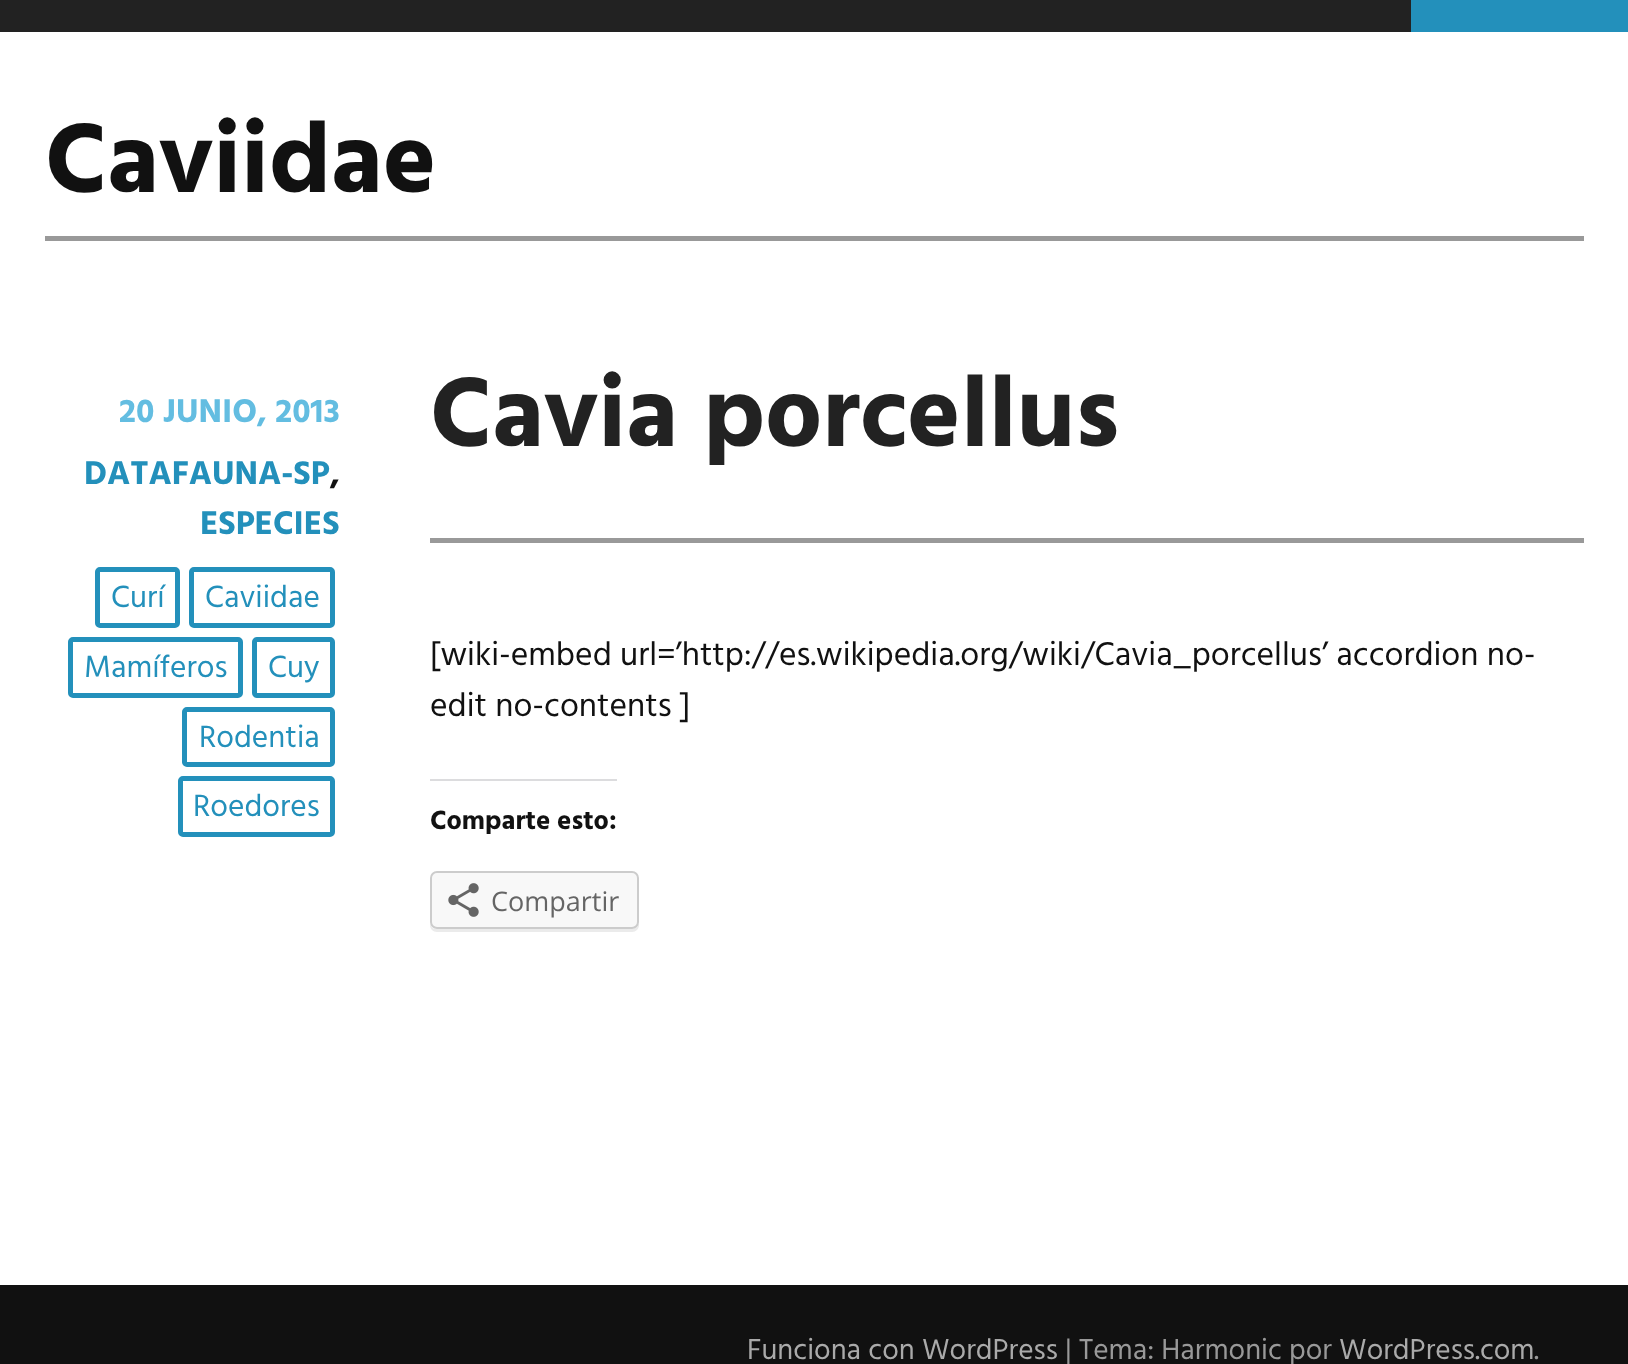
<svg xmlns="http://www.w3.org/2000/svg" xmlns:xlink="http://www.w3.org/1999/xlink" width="1628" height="1364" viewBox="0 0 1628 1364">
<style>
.cls-1{font:bold 101px Hind;fill:#111111}
.cls-2{font:bold 33.7px Hind;fill:#63bde1}
.cls-3{font:bold 33.7px Hind;fill:#2390bb}
.cls-4{font:bold 33.7px Hind;fill:#111111}
.cls-5{font:31.5px Hind;fill:#2390bb}
.cls-6{font:bold 101px Hind;fill:#222222}
.cls-7{font:33.7px Hind;fill:#111111}
.cls-8{font:bold 27px Hind;fill:#111111}
.cls-9{font:27px Open Sans;fill:#656565}
.cls-10{font:29.5px Hind;fill:#aaaaaa}
.cls-11{font:29.5px Hind;fill:#999999}
</style>
<rect width="100%" height="100%" fill="#ffffff"/>
<rect fill="#222222" x="0" y="0" width="1411" height="32"/>
<rect fill="#2390bb" x="1411" y="0" width="217" height="32"/>
<rect fill="#999999" x="45" y="236" width="1539" height="5"/>
<rect fill="none" stroke="#2390bb" stroke-width="5" x="97.5" y="569.5" width="80" height="56" rx="2.5"/>
<rect fill="none" stroke="#2390bb" stroke-width="5" x="191.5" y="569.5" width="141" height="56" rx="2.5"/>
<rect fill="none" stroke="#2390bb" stroke-width="5" x="70.5" y="639.5" width="170" height="56" rx="2.5"/>
<rect fill="none" stroke="#2390bb" stroke-width="5" x="254.5" y="639.5" width="78" height="56" rx="2.5"/>
<rect fill="none" stroke="#2390bb" stroke-width="5" x="184.5" y="709.5" width="148" height="55" rx="2.5"/>
<rect fill="none" stroke="#2390bb" stroke-width="5" x="180.5" y="778.5" width="152" height="56" rx="2.5"/>
<rect fill="#999999" x="430" y="538" width="1154" height="5"/>
<rect fill="#dcdcde" x="430" y="779" width="187" height="2"/>
<path fill="#ebebeb" d="M430 924V925C430 929 433 932 437 932H632C636 932 639 929 639 925V922C639 926 636 929 632 929H436C433 929 431 927 430 924Z"/>
<rect fill="#f8f8f8" stroke="#cccccc" stroke-width="2" x="431" y="872" width="207" height="56" rx="6"/>
<image xlink:href="image0.png" x="448" y="883" width="31" height="34"/>
<rect fill="#111111" x="0" y="1285" width="1628" height="79"/>
<text class="cls-1" x="45" y="192">Caviidae</text>
<text class="cls-2" x="119" y="422">20 JUNIO, 2013</text>
<text class="cls-3" x="84" y="484">DATAFAUNA-SP</text>
<text class="cls-4" x="330" y="484">,</text>
<text class="cls-3" x="200" y="534">ESPECIES</text>
<text class="cls-5" x="111" y="607">Curí</text>
<text class="cls-5" x="205" y="607">Caviidae</text>
<text class="cls-5" x="84" y="677">Mamíferos</text>
<text class="cls-5" x="268" y="677">Cuy</text>
<text class="cls-5" x="199" y="747">Rodentia</text>
<text class="cls-5" x="193" y="816">Roedores</text>
<text class="cls-6" x="430" y="446">Cavia porcellus</text>
<text class="cls-7"><tspan x="430" y="665">[wiki-embed url=’http://es.wikipedia.org/wiki/Cavia_porcellus’ accordion no-</tspan><tspan x="430" y="716">edit no-contents ]</tspan></text>
<text class="cls-8" x="430" y="829">Comparte esto:</text>
<text class="cls-9" x="491" y="911">Compartir</text>
<text class="cls-10" x="747" y="1359">Funciona con WordPress</text>
<text class="cls-11" x="1065" y="1359">| Tema: Harmonic por</text>
<text class="cls-10" x="1339" y="1359">WordPress.com</text>
<text class="cls-11" x="1534" y="1359">.</text>
</svg>
